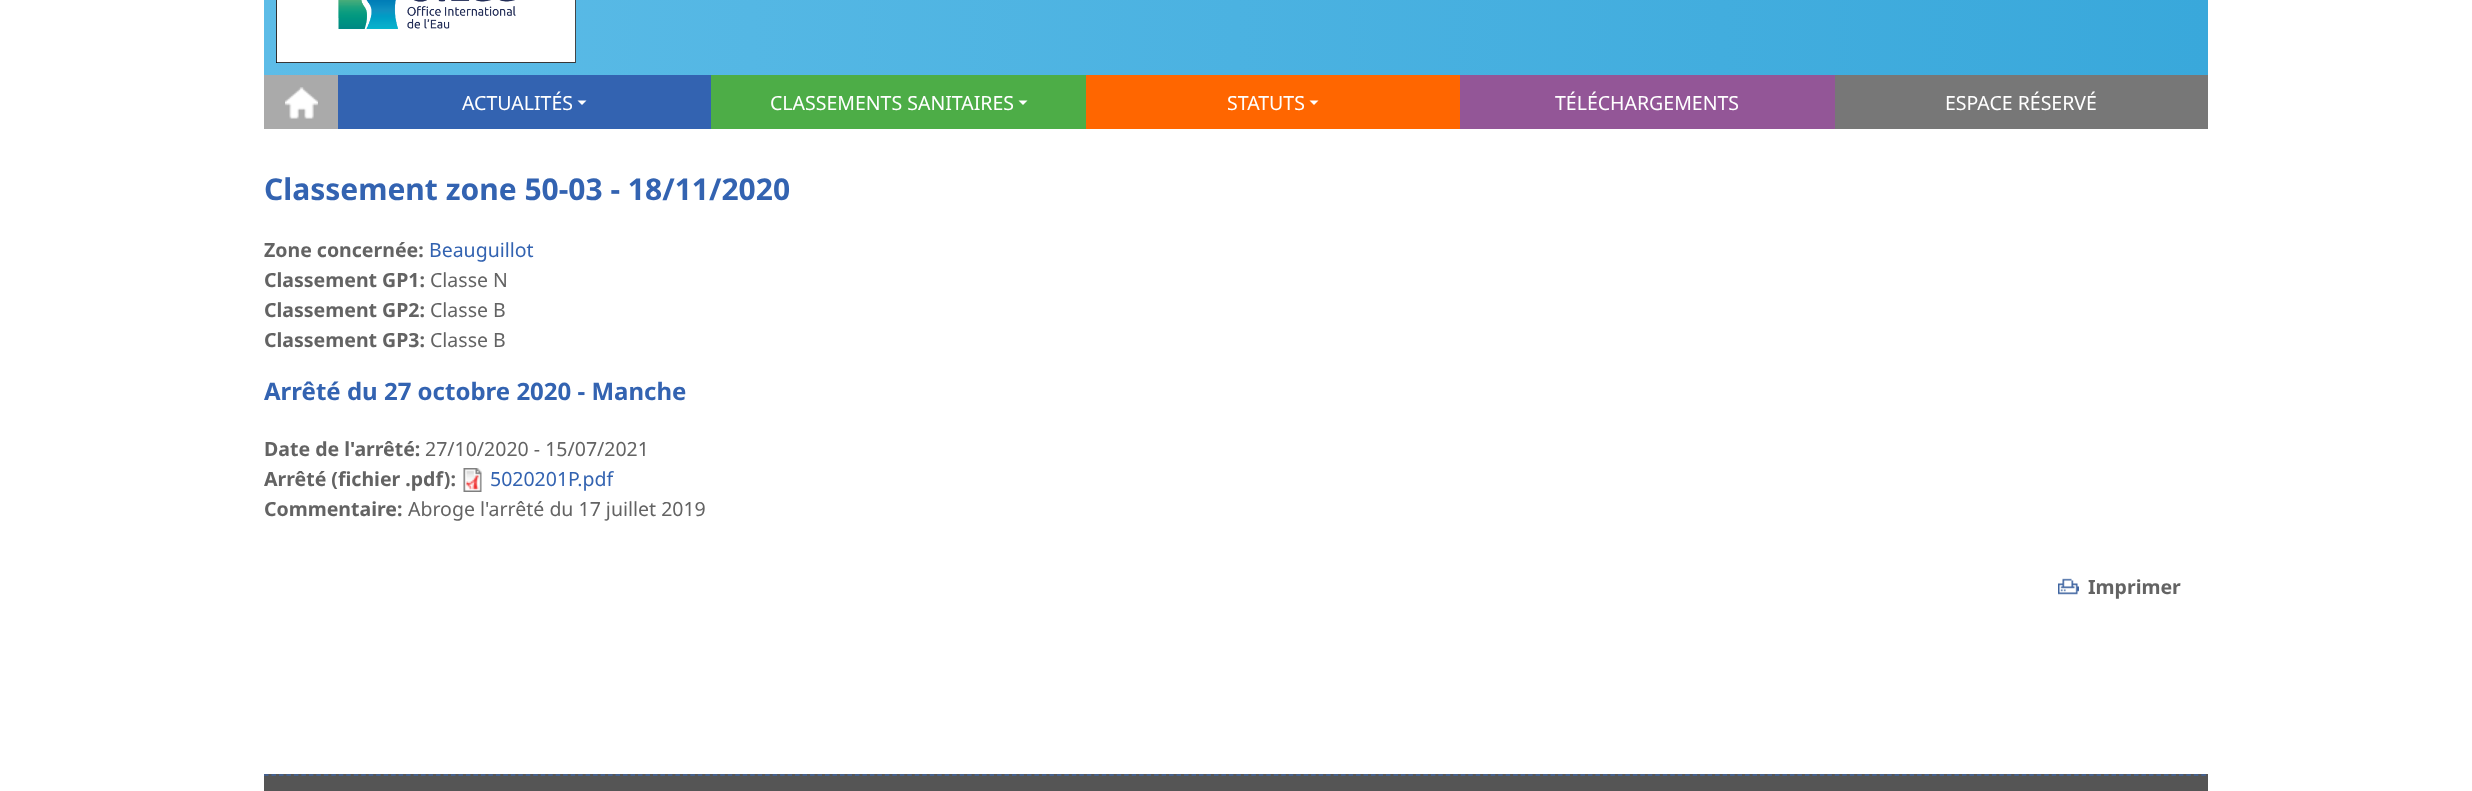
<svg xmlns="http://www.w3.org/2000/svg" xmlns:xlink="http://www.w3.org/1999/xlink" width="2472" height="791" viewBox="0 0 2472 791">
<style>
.cls-1{font:19.5px Noto Sans;fill:#ffffff}
.cls-2{font:bold 30px Noto Sans;fill:#3363b1}
.cls-3{font:bold 19.5px Noto Sans;fill:#636363}
.cls-4{font:19.5px Noto Sans;fill:#3363b1}
.cls-5{font:19.5px Noto Sans;fill:#636363}
.cls-6{font:bold 24px Noto Sans;fill:#3363b1}
</style>
<defs>
<linearGradient id="g1" gradientUnits="userSpaceOnUse" x1="264" y1="-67" x2="2208" y2="-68"><stop offset="0" stop-color="#5dbce7"/><stop offset="1" stop-color="#39a8db"/></linearGradient>
</defs>
<rect width="100%" height="100%" fill="#ffffff"/>
<rect fill="url(#g1)" x="264" y="0" width="1944" height="75"/>
<image xlink:href="image0.png" x="276" y="0" width="300" height="63"/>
<rect fill="#aaaaaa" x="264" y="75" width="74" height="54"/>
<image xlink:href="image1.png" x="285" y="87" width="33" height="32"/>
<rect fill="#3363b1" x="338" y="75" width="373" height="54"/>
<path fill="#ffffff" d="M577.5 100.5H586.5L582 105Z"/>
<rect fill="#4dad47" x="711" y="75" width="375" height="54"/>
<path fill="#ffffff" d="M1018.5 100.5H1027.5L1023 105Z"/>
<rect fill="#ff6600" x="1086" y="75" width="374" height="54"/>
<path fill="#ffffff" d="M1309.5 100.5H1318.5L1314 105Z"/>
<rect fill="#935697" x="1460" y="75" width="375" height="54"/>
<rect fill="#777777" x="1835" y="75" width="373" height="54"/>
<image xlink:href="image2.png" x="463" y="468" width="19" height="24"/>
<image xlink:href="image3.png" x="2058" y="578" width="21" height="17"/>
<rect fill="#555555" x="264" y="774" width="1944" height="17"/>
<path fill="none" stroke="#3f64a0" stroke-width="1.5" stroke-dasharray="4.5 2.98" d="M264 775H2208"/>
<text class="cls-1" x="462" y="110">ACTUALITÉS</text>
<text class="cls-1" x="770" y="110">CLASSEMENTS SANITAIRES</text>
<text class="cls-1" x="1227" y="110">STATUTS</text>
<text class="cls-1" x="1555" y="110">TÉLÉCHARGEMENTS</text>
<text class="cls-1" x="1945" y="110">ESPACE RÉSERVÉ</text>
<text class="cls-2" x="264" y="200">Classement zone 50-03 - 18/11/2020</text>
<text class="cls-3" x="264" y="257">Zone concernée:</text>
<text class="cls-4" x="429" y="257">Beauguillot</text>
<text class="cls-3" x="264" y="287">Classement GP1:</text>
<text class="cls-5" x="430" y="287">Classe N</text>
<text class="cls-3" x="264" y="317">Classement GP2:</text>
<text class="cls-5" x="430" y="317">Classe B</text>
<text class="cls-3" x="264" y="347">Classement GP3:</text>
<text class="cls-5" x="430" y="347">Classe B</text>
<text class="cls-6" x="264" y="400">Arrêté du 27 octobre 2020 - Manche</text>
<text class="cls-3" x="264" y="456">Date de l'arrêté:</text>
<text class="cls-5" x="425" y="456">27/10/2020 - 15/07/2021</text>
<text class="cls-3" x="264" y="486">Arrêté (fichier .pdf):</text>
<text class="cls-4" x="490" y="486">5020201P.pdf</text>
<text class="cls-3" x="264" y="516">Commentaire:</text>
<text class="cls-5" x="408" y="516">Abroge l'arrêté du 17 juillet 2019</text>
<text class="cls-3" x="2088" y="594">Imprimer</text>
</svg>
